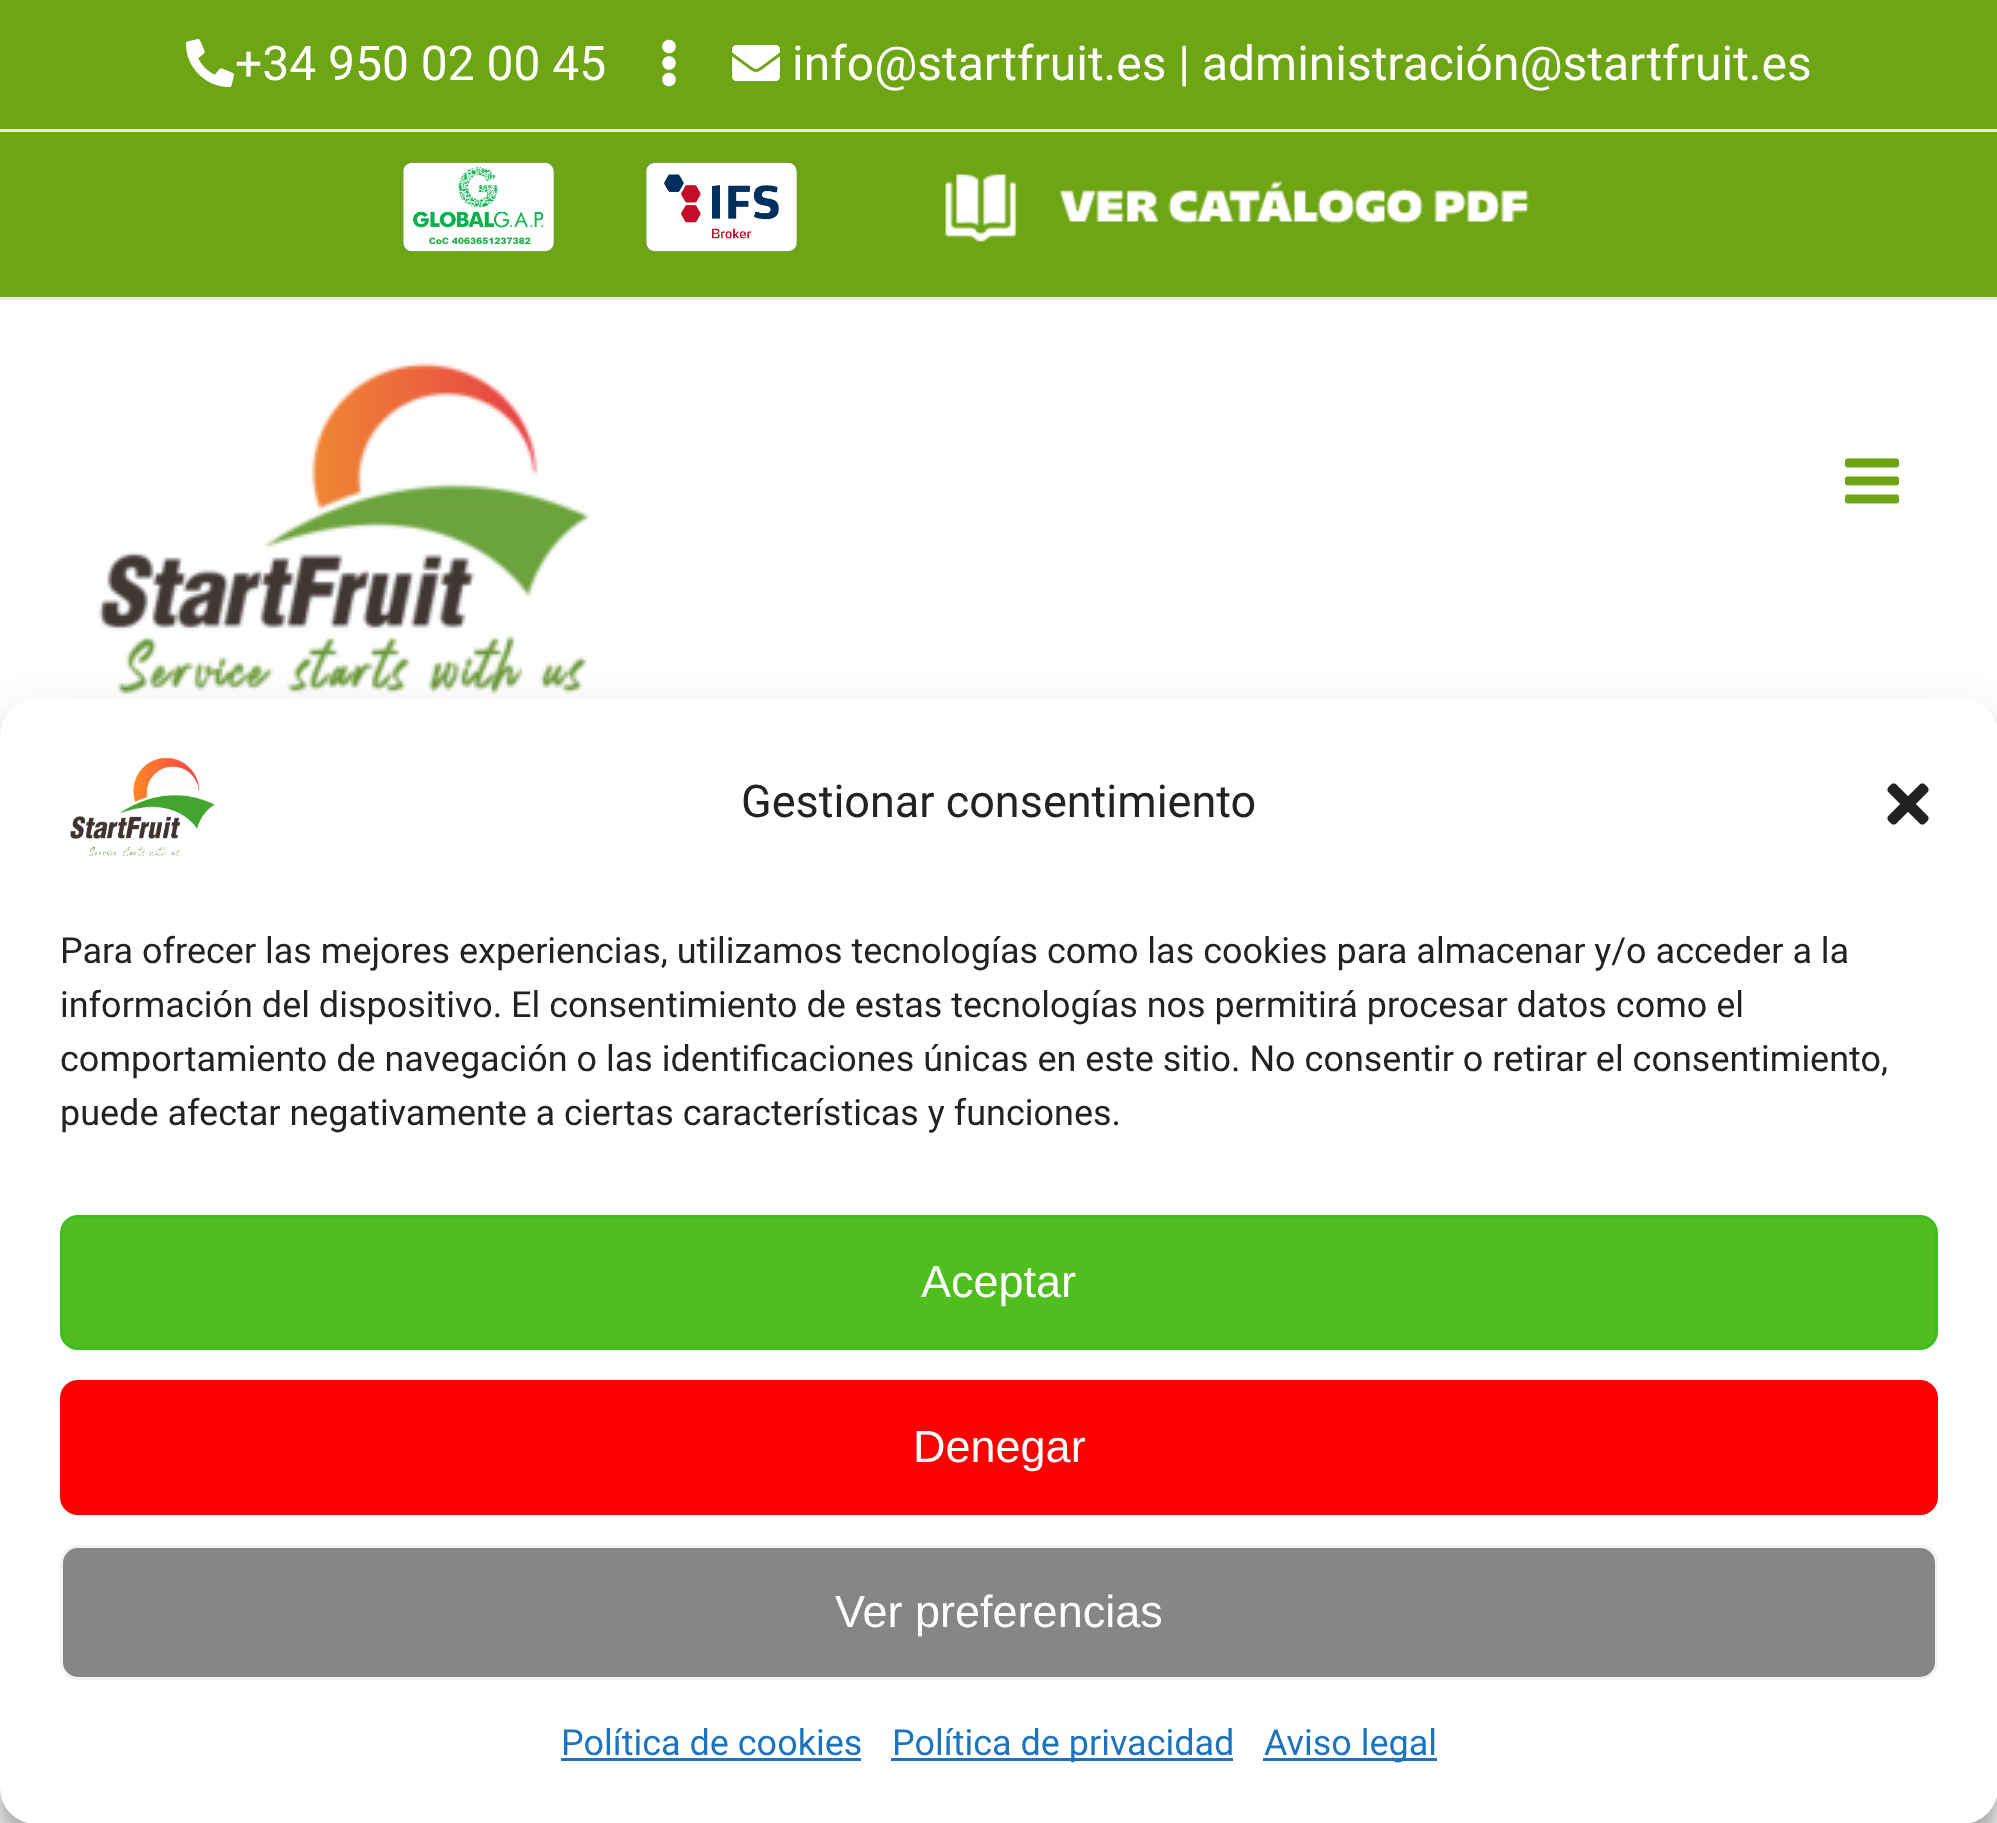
<svg xmlns="http://www.w3.org/2000/svg" xmlns:xlink="http://www.w3.org/1999/xlink" width="1997" height="1823" viewBox="0 0 1997 1823">
<style>
.cls-1{font:48px Roboto;fill:#ffffff}
.cls-2{font:45px Roboto;fill:#222222}
.cls-3{font:36px Roboto;fill:#222222}
.cls-4{font:45px Liberation Sans;fill:#ffffff}
.cls-5{font:36px Roboto;fill:#1e73be}
</style>
<rect width="100%" height="100%" fill="#ffffff"/>
<rect fill="#6ea515" x="0" y="0" width="1997" height="297"/>
<rect fill="#eaeaea" x="0" y="297" width="1997" height="3"/>
<rect fill="#eaeaea" x="0" y="129" width="1997" height="3"/>
<image xlink:href="image0.png" x="186" y="39" width="48" height="48"/>
<image xlink:href="image1.png" x="662" y="39" width="14" height="48"/>
<image xlink:href="image2.png" x="732" y="45" width="48" height="36"/>
<image xlink:href="image3.png" x="403" y="162" width="152" height="90"/>
<image xlink:href="image4.png" x="646" y="162" width="152" height="90"/>
<image xlink:href="image5.png" x="945" y="174" width="584" height="68"/>
<image xlink:href="image6.png" x="98" y="362" width="491" height="332"/>
<image xlink:href="image7.png" x="1845" y="458" width="54" height="46"/>
<rect fill="#000000" fill-opacity="0.23" filter="blur(9px)" x="0" y="717" width="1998" height="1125" rx="36"/>
<rect fill="#000000" fill-opacity="0.19" filter="blur(30px)" x="0" y="729" width="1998" height="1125" rx="36"/>
<rect fill="#808080" filter="blur(7.5px)" x="1788" y="1602" width="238" height="180" rx="6"/>
<rect fill="#ffffff" x="0" y="699" width="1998" height="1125" rx="36"/>
<image xlink:href="image8.png" x="70" y="757" width="145" height="99"/>
<image xlink:href="image9.png" x="1887" y="783" width="42" height="42"/>
<rect fill="#4fbe1e" stroke="#3ebe1e" stroke-width="3" x="61.5" y="1216.5" width="1875" height="132" rx="16.5"/>
<rect fill="#ff0000" stroke="#ff0000" stroke-width="3" x="61.5" y="1381.5" width="1875" height="132" rx="16.5"/>
<rect fill="#868686" stroke="#f2f2f2" stroke-width="3" x="61.5" y="1546.5" width="1875" height="132" rx="16.5"/>
<rect fill="#1e73be" x="561" y="1758" width="300" height="3"/>
<rect fill="#1e73be" x="891" y="1758" width="342" height="3"/>
<rect fill="#1e73be" x="1263" y="1758" width="174" height="3"/>
<text class="cls-1" x="235" y="80">+34 950 02 00 45</text>
<text class="cls-1" x="792" y="80">info@startfruit.es | administración@startfruit.es</text>
<text class="cls-2" x="741" y="817">Gestionar consentimiento</text>
<text class="cls-3"><tspan x="60" y="963">Para ofrecer las mejores experiencias, utilizamos tecnologías como las cookies para almacenar y/o acceder a la</tspan><tspan x="60" y="1017">información del dispositivo. El consentimiento de estas tecnologías nos permitirá procesar datos como el</tspan><tspan x="60" y="1071">comportamiento de navegación o las identificaciones únicas en este sitio. No consentir o retirar el consentimiento,</tspan><tspan x="60" y="1125">puede afectar negativamente a ciertas características y funciones.</tspan></text>
<text class="cls-4" x="921" y="1297">Aceptar</text>
<text class="cls-4" x="913" y="1462">Denegar</text>
<text class="cls-4" x="835" y="1627">Ver preferencias</text>
<text class="cls-5" x="561" y="1755">Política de cookies</text>
<text class="cls-5" x="892" y="1755">Política de privacidad</text>
<text class="cls-5" x="1264" y="1755">Aviso legal</text>
</svg>
